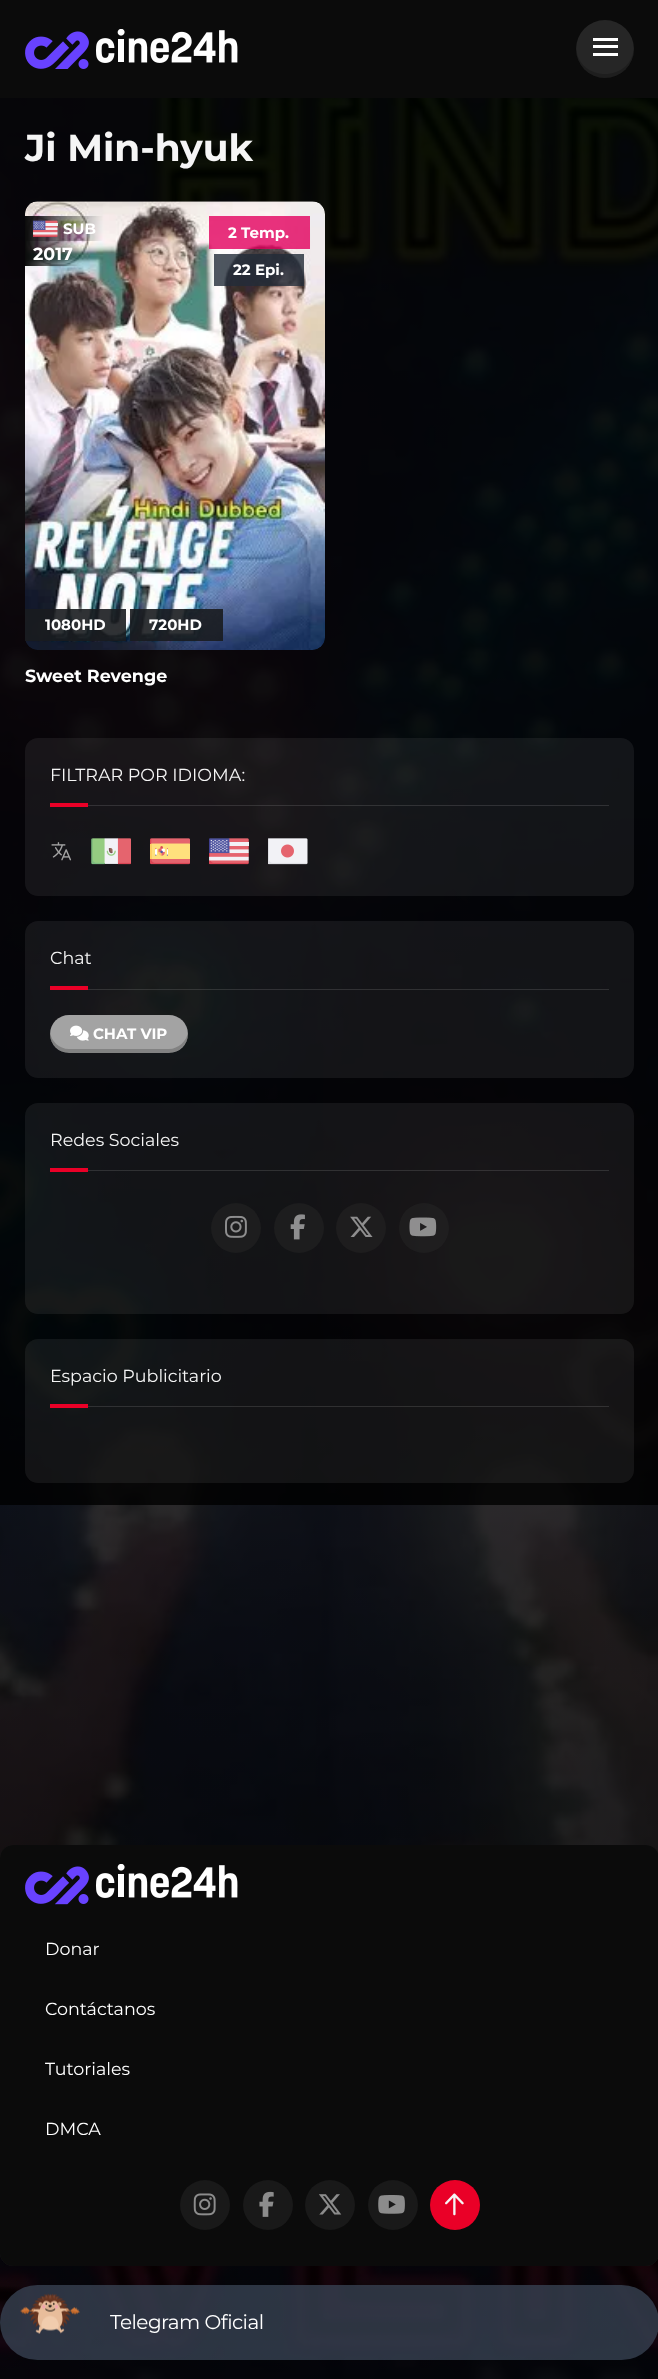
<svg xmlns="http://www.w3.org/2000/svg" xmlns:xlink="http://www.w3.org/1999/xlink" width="658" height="2379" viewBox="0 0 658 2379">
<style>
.cls-1{font:bold 37.5px Montserrat;fill:#f5f5f5}
.cls-2{font:bold 15px Montserrat;fill:#ffffff}
.cls-3{font:bold 17.5px Montserrat;fill:#ffffff}
.cls-4{font:17.5px Montserrat;fill:#f5f5f5}
.cls-5{font:17.5px Montserrat;fill:#ffffff}
.cls-6{font:20px Montserrat;letter-spacing:-0.5px;fill:#ffffff}
</style>
<rect width="100%" height="100%" fill="#ffffff"/>
<image xlink:href="image0.png" x="0" y="98" width="658" height="2281"/>
<rect fill="#0b0b0b" x="0" y="0" width="658" height="98"/>
<image xlink:href="image1.png" x="25" y="29" width="213" height="40"/>
<circle fill="#262626" cx="605" cy="49" r="29"/>
<path fill="#000000" fill-opacity="0.2" d="M576 47C574 76 613 90 629 65C633 60 634 53 634 47C632 83 578 83 576 47Z"/>
<rect fill="#ffffff" x="593" y="38" width="25" height="3"/>
<rect fill="#ffffff" x="593" y="45" width="25" height="3"/>
<rect fill="#ffffff" x="593" y="53" width="25" height="3"/>
<rect fill="#000000" fill-opacity="0.8" x="0" y="98" width="658" height="1407"/>
<image xlink:href="image2.png" x="25" y="201" width="300" height="449"/>
<image xlink:href="image3.png" x="33" y="220" width="25" height="17"/>
<rect fill="#e2005e" fill-opacity="0.8" x="209" y="216" width="101" height="33"/>
<rect fill="#222c38" fill-opacity="0.8" x="214" y="254" width="90" height="32"/>
<rect fill="#191c1f" fill-opacity="0.9" x="25" y="609" width="101" height="32"/>
<rect fill="#191c1f" fill-opacity="0.9" x="130" y="609" width="93" height="32"/>
<rect fill="#a3a3a3" fill-opacity="0.1" x="25" y="738" width="609" height="158" rx="13"/>
<rect fill="#ea0027" x="50" y="803" width="38" height="4"/>
<rect fill="#a3a3a3" fill-opacity="0.2" x="88" y="805" width="521" height="1"/>
<image xlink:href="image4.png" x="51" y="842" width="21" height="19"/>
<image xlink:href="image5.png" x="91" y="838" width="40" height="27"/>
<image xlink:href="image6.png" x="150" y="838" width="40" height="27"/>
<image xlink:href="image7.png" x="209" y="838" width="40" height="27"/>
<image xlink:href="image8.png" x="268" y="838" width="40" height="27"/>
<rect fill="#a3a3a3" fill-opacity="0.1" x="25" y="921" width="609" height="157" rx="13"/>
<rect fill="#ea0027" x="50" y="986" width="38" height="4"/>
<rect fill="#a3a3a3" fill-opacity="0.2" x="88" y="989" width="521" height="1"/>
<rect fill="#a3a3a3" x="50" y="1015" width="138" height="38" rx="19"/>
<path fill="#000000" fill-opacity="0.2" d="M50 1032V1034C50 1044 59 1053 69 1053H169C179 1053 188 1044 188 1034V1032C187 1041 178 1049 169 1049H69C59 1049 51 1041 50 1032Z"/>
<image xlink:href="image9.png" x="70" y="1025" width="19" height="16"/>
<rect fill="#a3a3a3" fill-opacity="0.1" x="25" y="1103" width="609" height="211" rx="13"/>
<rect fill="#ea0027" x="50" y="1168" width="38" height="4"/>
<rect fill="#a3a3a3" fill-opacity="0.2" x="88" y="1170" width="521" height="1"/>
<circle fill="#1d1d1e" cx="236" cy="1228" r="25"/>
<image xlink:href="image10.png" x="225" y="1215" width="22" height="23"/>
<circle fill="#1d1d1e" cx="299" cy="1228" r="25"/>
<image xlink:href="image11.png" x="290" y="1214" width="15" height="26"/>
<circle fill="#1e1d1e" cx="361" cy="1228" r="25"/>
<image xlink:href="image12.png" x="350" y="1216" width="23" height="21"/>
<circle fill="#262626" fill-opacity="0.5" cx="424" cy="1228" r="25"/>
<image xlink:href="image13.png" x="409" y="1217" width="28" height="20"/>
<rect fill="#a3a3a3" fill-opacity="0.1" x="25" y="1339" width="609" height="144" rx="13"/>
<rect fill="#ea0027" x="50" y="1404" width="38" height="4"/>
<rect fill="#a3a3a3" fill-opacity="0.2" x="88" y="1406" width="521" height="1"/>
<rect fill="#262626" x="0" y="1845" width="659" height="421" rx="13"/>
<rect fill="#000000" fill-opacity="0.7" x="0" y="1845" width="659" height="421" rx="13"/>
<image xlink:href="image14.png" x="25" y="1864" width="213" height="41"/>
<circle fill="#191919" cx="205" cy="2205" r="25"/>
<image xlink:href="image15.png" x="193" y="2193" width="23" height="23"/>
<circle fill="#191919" cx="268" cy="2205" r="25"/>
<image xlink:href="image16.png" x="259" y="2191" width="15" height="26"/>
<circle fill="#191919" cx="330" cy="2205" r="25"/>
<image xlink:href="image17.png" x="319" y="2194" width="23" height="21"/>
<circle fill="#191919" cx="393" cy="2205" r="25"/>
<image xlink:href="image18.png" x="378" y="2195" width="27" height="19"/>
<circle fill="#ea0027" cx="455" cy="2205" r="25"/>
<image xlink:href="image19.png" x="445" y="2193" width="19" height="23"/>
<rect fill="#374151" fill-opacity="0.8" x="0" y="2285" width="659" height="75" rx="37.5"/>
<image xlink:href="image20.png" x="20" y="2293" width="60" height="41"/>
<text class="cls-1" x="25" y="161">Ji Min-hyuk</text>
<text class="cls-2" x="63" y="234">SUB</text>
<text class="cls-3" x="33" y="260">2017</text>
<text class="cls-2" x="228" y="238">2 Temp.</text>
<text class="cls-2" x="233" y="275">22 Epi.</text>
<text class="cls-2" x="45" y="630">1080HD</text>
<text class="cls-2" x="149" y="630">720HD</text>
<text class="cls-3" x="25" y="682">Sweet Revenge</text>
<text class="cls-4" x="50" y="781">FILTRAR POR IDIOMA:</text>
<text class="cls-4" x="50" y="964">Chat</text>
<text class="cls-2" x="93" y="1039">CHAT VIP</text>
<text class="cls-4" x="50" y="1146">Redes Sociales</text>
<text class="cls-4" x="50" y="1382">Espacio Publicitario</text>
<text class="cls-5" x="45" y="1955">Donar</text>
<text class="cls-5" x="45" y="2015">Contáctanos</text>
<text class="cls-5" x="45" y="2075">Tutoriales</text>
<text class="cls-5" x="45" y="2135">DMCA</text>
<text class="cls-6" x="110" y="2329">Telegram Oficial</text>
</svg>
